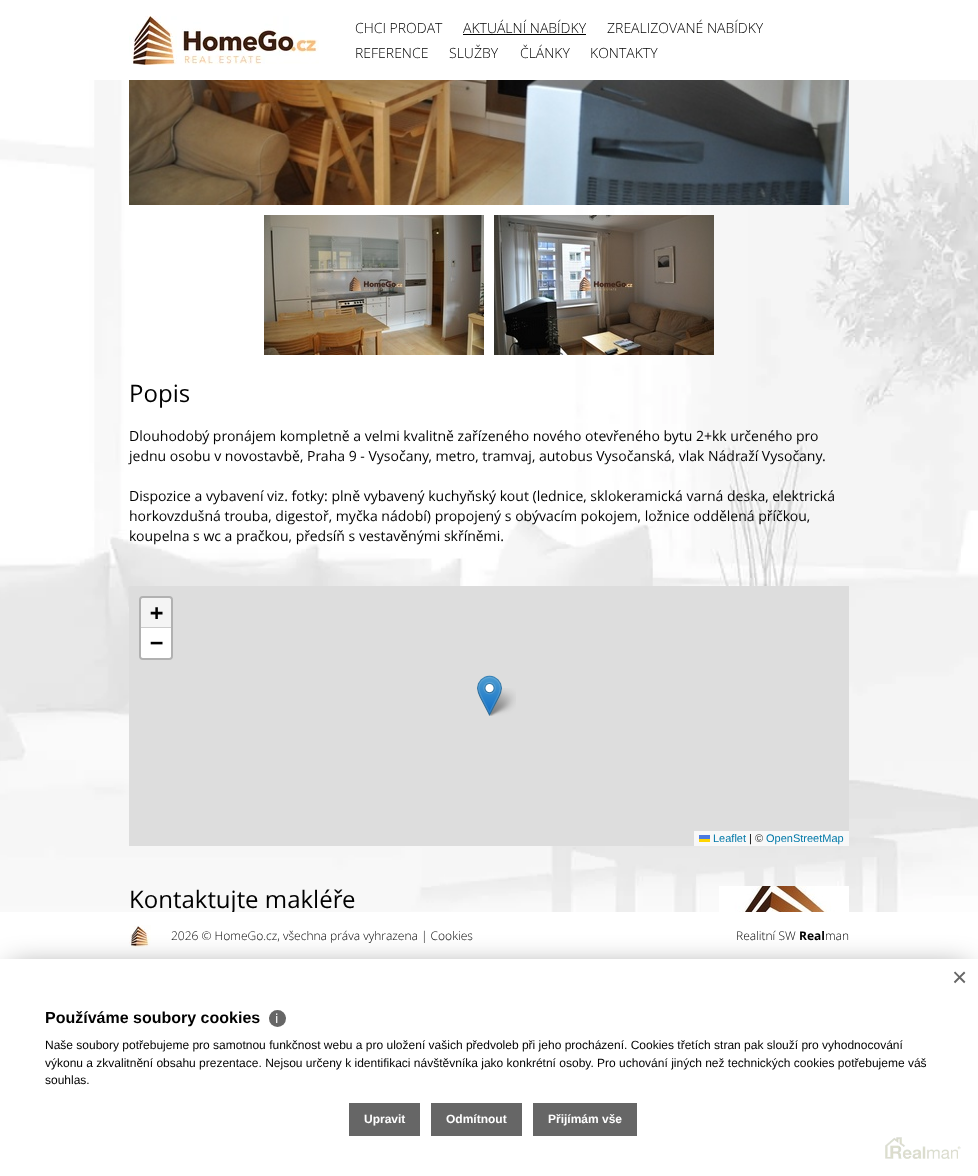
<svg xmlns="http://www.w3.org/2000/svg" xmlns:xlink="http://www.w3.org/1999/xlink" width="978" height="1176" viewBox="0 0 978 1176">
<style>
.cls-1{font:300 14px Open Sans;fill:#000000}
.cls-2{font:24px Open Sans;fill:#000000}
.cls-3{font:14px Open Sans;fill:#000000}
.cls-4{font:bold 22px DejaVu Sans Mono;fill:#000000}
.cls-5{font:11px Liberation Sans;fill:#0078a8}
.cls-6{font:11px Liberation Sans;fill:#000000}
.cls-7{font:11px Liberation Sans;fill:#333333}
.cls-8{font:300 12px Open Sans;fill:#000000}
.cls-9{font:bold 12px Open Sans;fill:#000000}
.cls-10{font:26px Liberation Sans;fill:#666666}
.cls-11{font:bold 16px Liberation Sans;fill:#000000}
.cls-12{font:13px Noto Sans;fill:#ffffff}
.cls-13{font:12px Liberation Sans;fill:#000000}
.cls-14{font:bold 12px Liberation Sans;fill:#ffffff}
</style>
<rect width="100%" height="100%" fill="#ffffff"/>
<image xlink:href="image0.png" x="129" y="16" width="190" height="49"/>
<rect fill="#000000" x="463" y="34" width="123" height="1"/>
<image xlink:href="image1.png" x="0" y="80" width="978" height="832"/>
<image xlink:href="image2.png" x="129" y="80" width="720" height="125"/>
<image xlink:href="image3.png" x="264" y="215" width="220" height="140"/>
<image xlink:href="image4.png" x="494" y="215" width="220" height="140"/>
<rect fill="#dddddd" x="129" y="586" width="720" height="260"/>
<rect fill="none" stroke="#b1b1b1" stroke-width="2" x="140" y="597" width="32" height="62" rx="3"/>
<path fill="#f4f4f4" d="M143 598H169C170 598 171 599 171 600V628H141V600C141 599 142 598 143 598Z"/>
<rect fill="#cccccc" x="141" y="627" width="30" height="1"/>
<path fill="#ffffff" d="M141 628H171V656C171 657 170 658 169 658H143C142 658 141 657 141 656Z"/>
<rect fill="#f8f8f8" x="694" y="831" width="155" height="15"/>
<rect fill="#4c7be1" x="699" y="835" width="11" height="4"/>
<rect fill="#ffd500" x="699" y="839" width="11" height="3"/>
<image xlink:href="image6.png" x="487" y="688" width="29" height="28"/>
<image xlink:href="image5.png" x="477" y="675" width="25" height="41"/>
<image xlink:href="image7.png" x="719" y="886" width="130" height="26"/>
<image xlink:href="image8.png" x="129" y="925" width="22" height="22"/>
<rect fill="#000000" fill-opacity="0.5" filter="blur(15px)" x="10" y="969" width="958" height="197"/>
<rect fill="#ffffff" x="0" y="959" width="978" height="217"/>
<image xlink:href="image9.png" x="885" y="1137" width="76" height="22"/>
<circle fill="#666666" cx="277.5" cy="1018.5" r="8.5"/>
<rect fill="#666666" x="349" y="1103" width="71" height="33"/>
<rect fill="#666666" x="431" y="1103" width="91" height="33"/>
<rect fill="#666666" x="533" y="1103" width="104" height="33"/>
<text class="cls-1" x="355" y="33">CHCI PRODAT</text>
<text class="cls-1" x="463" y="33">AKTUÁLNÍ NABÍDKY</text>
<text class="cls-1" x="607" y="33">ZREALIZOVANÉ NABÍDKY</text>
<text class="cls-1" x="355" y="58">REFERENCE</text>
<text class="cls-1" x="449" y="58">SLUŽBY</text>
<text class="cls-1" x="520" y="58">ČLÁNKY</text>
<text class="cls-1" x="590" y="58">KONTAKTY</text>
<text class="cls-2" x="129" y="402">Popis</text>
<text class="cls-3"><tspan x="129" y="441">Dlouhodobý pronájem kompletně a velmi kvalitně zařízeného nového otevřeného bytu 2+kk určeného pro</tspan><tspan x="129" y="461">jednu osobu v novostavbě, Praha 9 - Vysočany, metro, tramvaj, autobus Vysočanská, vlak Nádraží Vysočany.</tspan></text>
<text class="cls-3"><tspan x="129" y="501">Dispozice a vybavení viz. fotky: plně vybavený kuchyňský kout (lednice, sklokeramická varná deska, elektrická</tspan><tspan x="129" y="521">horkovzdušná trouba, digestoř, myčka nádobí) propojený s obývacím pokojem, ložnice oddělená příčkou,</tspan><tspan x="129" y="541">koupelna s wc a pračkou, předsíň s vestavěnými skříněmi.</tspan></text>
<text class="cls-4"><tspan x="150" y="620">+</tspan><tspan x="150" y="650">−</tspan></text>
<text class="cls-5" x="713" y="842">Leaflet</text>
<text class="cls-6" x="749" y="842">|</text>
<text class="cls-7" x="755" y="842">©</text>
<text class="cls-5" x="766" y="842">OpenStreetMap</text>
<text class="cls-2" x="129" y="908">Kontaktujte makléře</text>
<rect fill="#ffffff" x="229" y="912" width="6" height="2"/>
<text class="cls-8" x="171" y="940">2026 © HomeGo.cz, všechna práva vyhrazena | Cookies</text>
<text class="cls-8" x="736" y="940">Realitní SW</text>
<text class="cls-9" x="799" y="940">Real</text>
<text class="cls-8" x="825" y="940">man</text>
<text class="cls-10" x="952" y="986">×</text>
<text class="cls-11" x="45" y="1023">Používáme soubory cookies</text>
<text class="cls-12" x="275" y="1023">ℹ</text>
<text class="cls-13"><tspan x="45" y="1049">Naše soubory potřebujeme pro samotnou funkčnost webu a pro uložení vašich předvoleb při jeho procházení. Cookies třetích stran pak slouží pro vyhodnocování</tspan><tspan x="45" y="1067">výkonu a zkvalitnění obsahu prezentace. Nejsou určeny k identifikaci návštěvníka jako konkrétní osoby. Pro uchování jiných než technických cookies potřebujeme váš</tspan><tspan x="45" y="1084">souhlas.</tspan></text>
<text class="cls-14" x="364" y="1123">Upravit</text>
<text class="cls-14" x="446" y="1123">Odmítnout</text>
<text class="cls-14" x="548" y="1123">Přijímám vše</text>
</svg>
